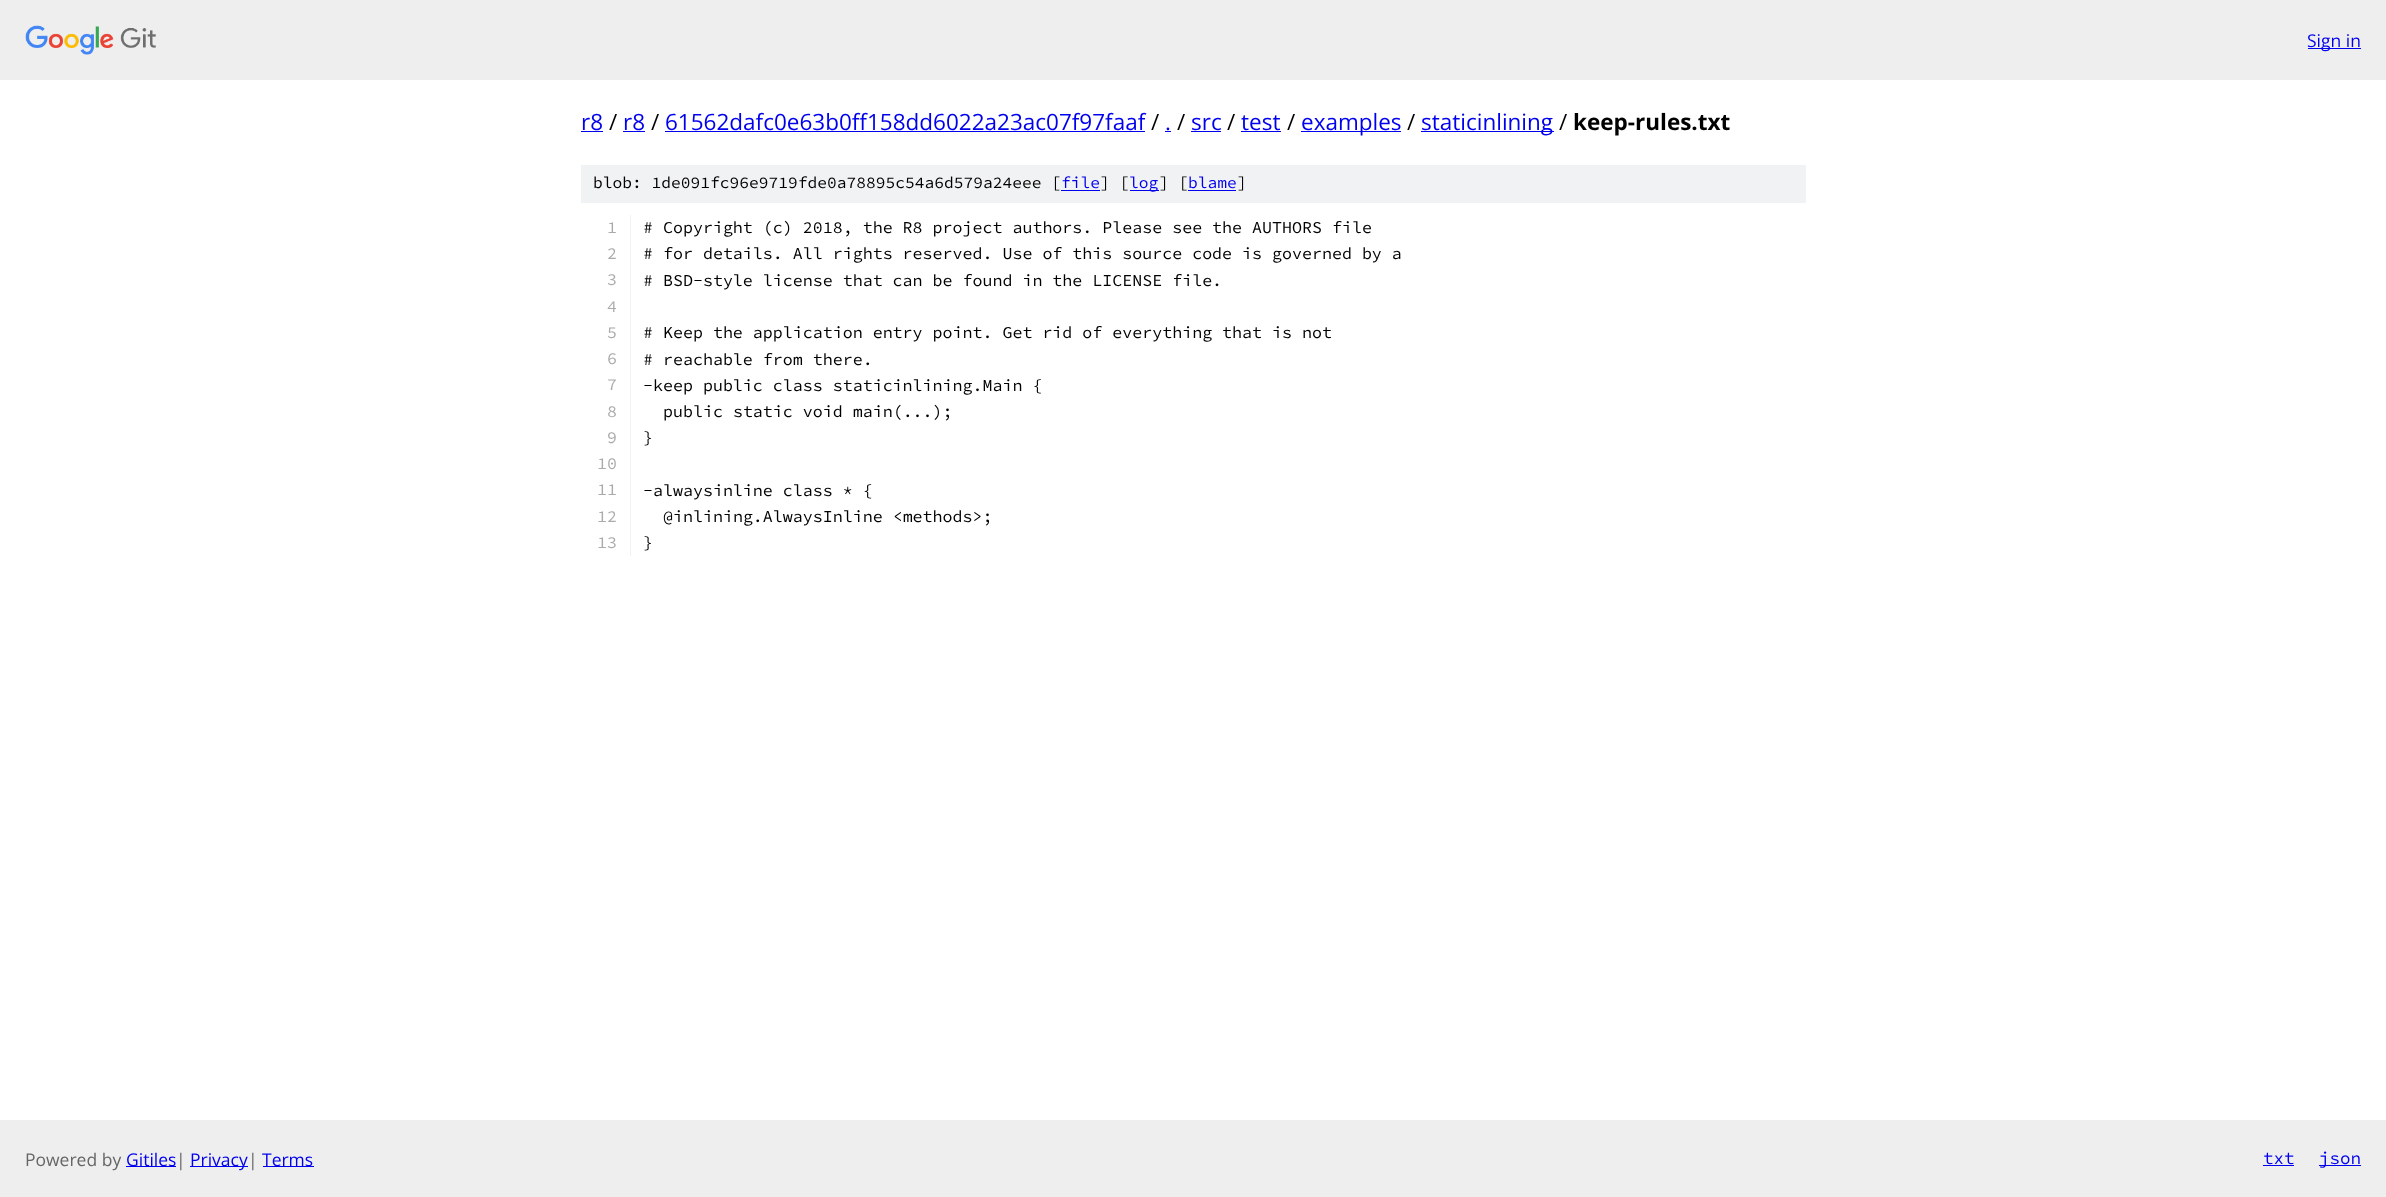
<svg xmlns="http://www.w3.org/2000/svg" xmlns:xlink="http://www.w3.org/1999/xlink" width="2386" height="1197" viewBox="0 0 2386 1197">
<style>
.cls-1{font:17.5px Open Sans;fill:#0000ee}
.cls-2{font:22.5px Open Sans;fill:#0000ee}
.cls-3{font:22.5px Open Sans;fill:#000000}
.cls-4{font:bold 22.5px Open Sans;fill:#000000}
.cls-5{font:200 16.25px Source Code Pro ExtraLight;fill:#000000}
.cls-6{font:200 16.25px Source Code Pro ExtraLight;fill:#0000ee}
.cls-7{font:200 16.65px Source Code Pro ExtraLight;fill:#aaaaaa}
.cls-8{font:200 16.65px Source Code Pro ExtraLight;fill:#000000}
.cls-9{font:17.5px Open Sans;fill:#666666}
.cls-10{font:200 17.5px Source Code Pro ExtraLight;fill:#0000ee}
</style>
<rect width="100%" height="100%" fill="#ffffff"/>
<rect fill="#eeeeee" x="0" y="0" width="2386" height="80"/>
<image xlink:href="image0.png" x="25" y="25" width="131" height="30"/>
<rect fill="#0000ee" x="2308" y="48" width="53" height="1"/>
<rect fill="#0000ee" x="581" y="131" width="22" height="1"/>
<rect fill="#0000ee" x="623" y="131" width="22" height="1"/>
<rect fill="#0000ee" x="665" y="131" width="480" height="1"/>
<rect fill="#0000ee" x="1165" y="131" width="6" height="1"/>
<rect fill="#0000ee" x="1191" y="131" width="30" height="1"/>
<rect fill="#0000ee" x="1241" y="131" width="40" height="1"/>
<rect fill="#0000ee" x="1301" y="131" width="100" height="1"/>
<rect fill="#0000ee" x="1421" y="131" width="133" height="1"/>
<rect fill="#f1f2f3" x="581" y="165" width="1225" height="38"/>
<rect fill="#0000ee" x="1061" y="190" width="39" height="1"/>
<rect fill="#0000ee" x="1130" y="190" width="29" height="1"/>
<rect fill="#0000ee" x="1188" y="190" width="48" height="1"/>
<rect fill="#f1f2f3" x="630" y="215" width="1" height="341"/>
<rect fill="#eeeeee" x="0" y="1120" width="2386" height="77"/>
<rect fill="#0000ee" x="126" y="1166" width="50" height="1"/>
<rect fill="#0000ee" x="190" y="1166" width="58" height="1"/>
<rect fill="#0000ee" x="263" y="1166" width="51" height="1"/>
<rect fill="#0000ee" x="2263" y="1165" width="31" height="1"/>
<rect fill="#0000ee" x="2319" y="1165" width="42" height="1"/>
<text class="cls-1" x="2307" y="47">Sign in</text>
<text class="cls-2" x="581" y="130">r8</text>
<text class="cls-3" x="609" y="130">/</text>
<text class="cls-2" x="623" y="130">r8</text>
<text class="cls-3" x="651" y="130">/</text>
<text class="cls-2" x="665" y="130">61562dafc0e63b0ff158dd6022a23ac07f97faaf</text>
<text class="cls-3" x="1151" y="130">/</text>
<text class="cls-2" x="1165" y="130">.</text>
<text class="cls-3" x="1177" y="130">/</text>
<text class="cls-2" x="1191" y="130">src</text>
<text class="cls-3" x="1227" y="130">/</text>
<text class="cls-2" x="1241" y="130">test</text>
<text class="cls-3" x="1287" y="130">/</text>
<text class="cls-2" x="1301" y="130">examples</text>
<text class="cls-3" x="1407" y="130">/</text>
<text class="cls-2" x="1421" y="130">staticinlining</text>
<text class="cls-3" x="1559" y="130">/</text>
<text class="cls-4" x="1573" y="130">keep-rules.txt</text>
<text class="cls-5" x="593" y="188">blob: 1de091fc96e9719fde0a78895c54a6d579a24eee [</text>
<text class="cls-6" x="1061" y="188">file</text>
<text class="cls-5" x="1100" y="188">] [</text>
<text class="cls-6" x="1129" y="188">log</text>
<text class="cls-5" x="1159" y="188">] [</text>
<text class="cls-6" x="1188" y="188">blame</text>
<text class="cls-5" x="1237" y="188">]</text>
<text class="cls-7" x="607" y="233">1</text>
<text class="cls-8" x="643" y="233"># Copyright (c) 2018, the R8 project authors. Please see the AUTHORS file</text>
<text class="cls-7" x="607" y="259">2</text>
<text class="cls-8" x="643" y="259"># for details. All rights reserved. Use of this source code is governed by a</text>
<text class="cls-7" x="607" y="285">3</text>
<text class="cls-8" x="643" y="286"># BSD-style license that can be found in the LICENSE file.</text>
<text class="cls-7"><tspan x="607" y="312">4</tspan><tspan x="607" y="338">5</tspan></text>
<text class="cls-8" x="643" y="338"># Keep the application entry point. Get rid of everything that is not</text>
<text class="cls-7" x="607" y="364">6</text>
<text class="cls-8" x="643" y="365"># reachable from there.</text>
<text class="cls-7" x="607" y="390">7</text>
<text class="cls-8" x="643" y="391">-keep public class staticinlining.Main {</text>
<text class="cls-7" x="607" y="417">8</text>
<text class="cls-8" x="663" y="417">public static void main(...);</text>
<text class="cls-7" x="607" y="443">9</text>
<text class="cls-8" x="643" y="443">}</text>
<text class="cls-7"><tspan x="597" y="469">10</tspan><tspan x="597" y="495">11</tspan></text>
<text class="cls-8" x="643" y="496">-alwaysinline class * {</text>
<text class="cls-7" x="597" y="522">12</text>
<text class="cls-8" x="663" y="522">@inlining.AlwaysInline &lt;methods&gt;;</text>
<text class="cls-7" x="597" y="548">13</text>
<text class="cls-8" x="643" y="548">}</text>
<text class="cls-9" x="25" y="1166">Powered by</text>
<text class="cls-1" x="126" y="1166">Gitiles</text>
<text class="cls-9" x="176" y="1166">|</text>
<text class="cls-1" x="190" y="1166">Privacy</text>
<text class="cls-9" x="248" y="1166">|</text>
<text class="cls-1" x="262" y="1166">Terms</text>
<text class="cls-10" x="2263" y="1164">txt</text>
<text class="cls-10" x="2319" y="1164">json</text>
</svg>
